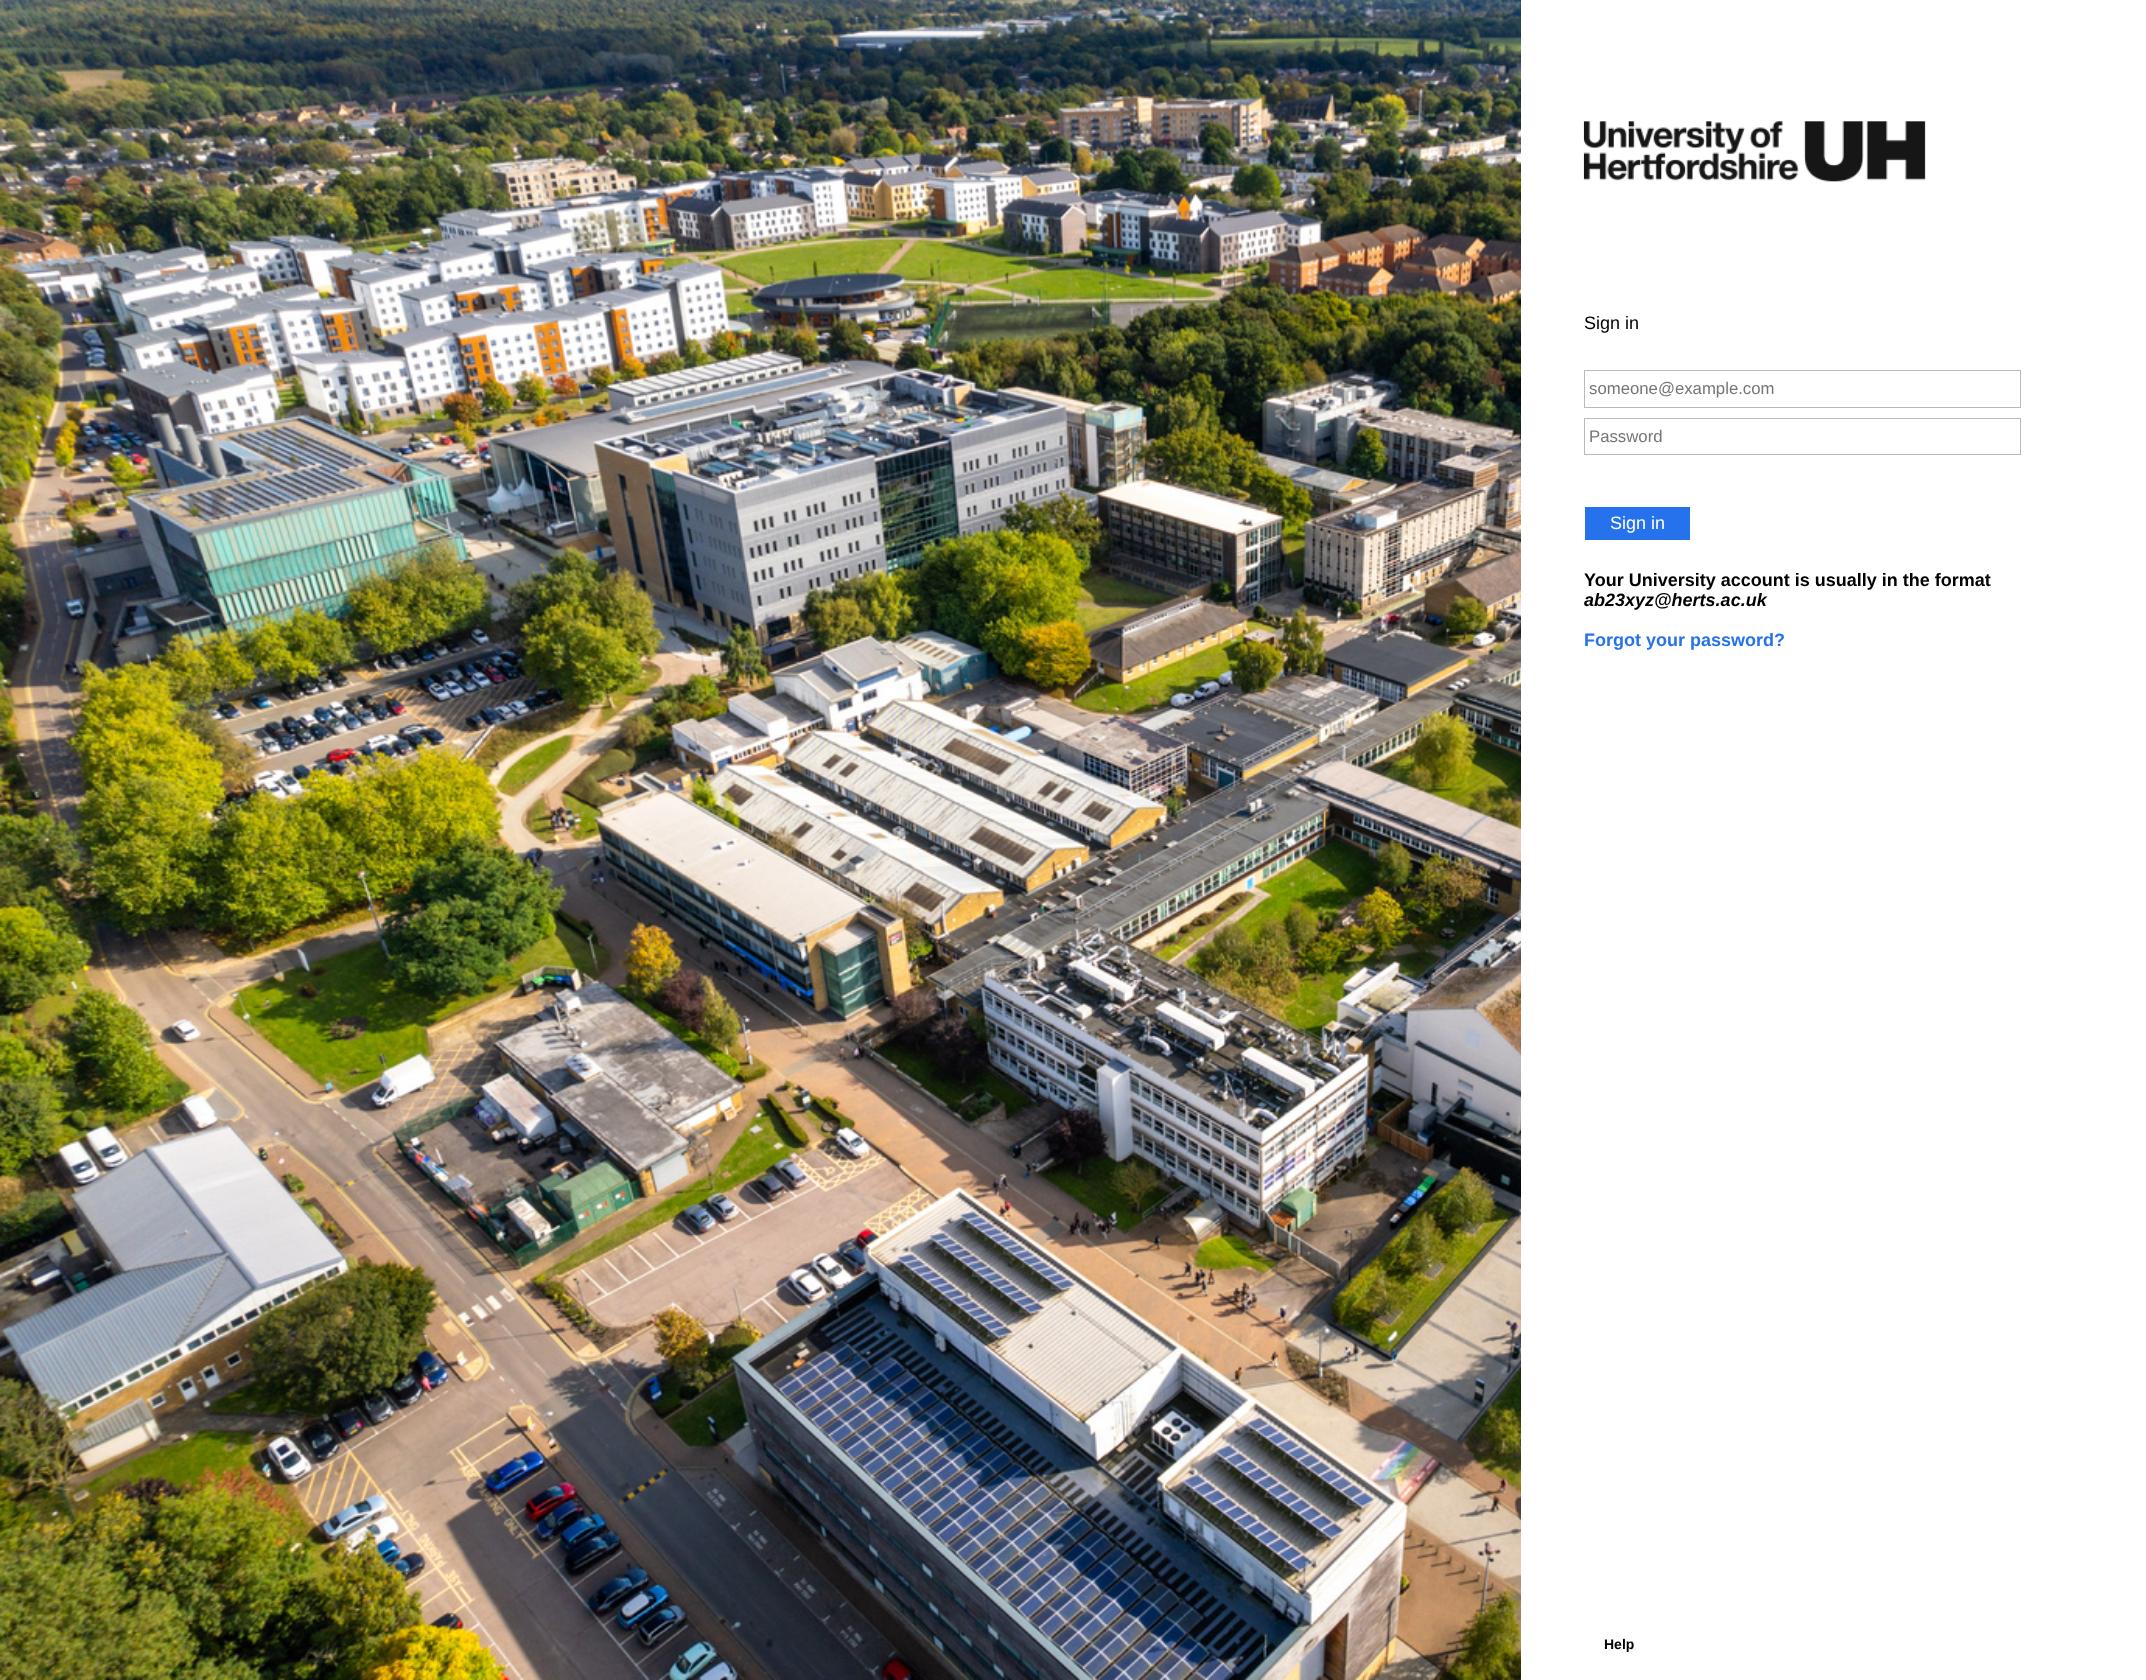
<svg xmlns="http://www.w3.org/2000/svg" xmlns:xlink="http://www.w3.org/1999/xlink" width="2146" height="1680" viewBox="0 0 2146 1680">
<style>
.cls-1{font:18px Liberation Sans;fill:#000000}
.cls-2{font:16.75px Liberation Sans;fill:#757575}
.cls-3{font:18px Liberation Sans;fill:#ffffff}
.cls-4{font:bold 18px Liberation Sans;fill:#000000}
.cls-5{font:italic bold 18px Liberation Sans;fill:#000000}
.cls-6{font:bold 18px Liberation Sans;fill:#2672ec}
.cls-7{font:bold 14px Liberation Sans;fill:#000000}
</style>
<rect width="100%" height="100%" fill="#ffffff"/>
<image xlink:href="image0.png" x="0" y="0" width="1521" height="1680"/>
<image xlink:href="image1.png" x="1583" y="121" width="343" height="61"/>
<rect fill="none" stroke="#bababa" x="1584.5" y="370.5" width="436" height="37"/>
<rect fill="none" stroke="#bababa" x="1584.5" y="418.5" width="436" height="36"/>
<rect fill="#2672ec" x="1585" y="507" width="105" height="33"/>
<text class="cls-1" x="1584" y="329">Sign in</text>
<text class="cls-2" x="1589" y="394">someone@example.com</text>
<text class="cls-2" x="1589" y="442">Password</text>
<text class="cls-3" x="1610" y="529">Sign in</text>
<text class="cls-4" x="1584" y="586">Your University account is usually in the format</text>
<text class="cls-5" x="1584" y="606">ab23xyz@herts.ac.uk</text>
<text class="cls-6" x="1584" y="646">Forgot your password?</text>
<text class="cls-7" x="1604" y="1649">Help</text>
</svg>
